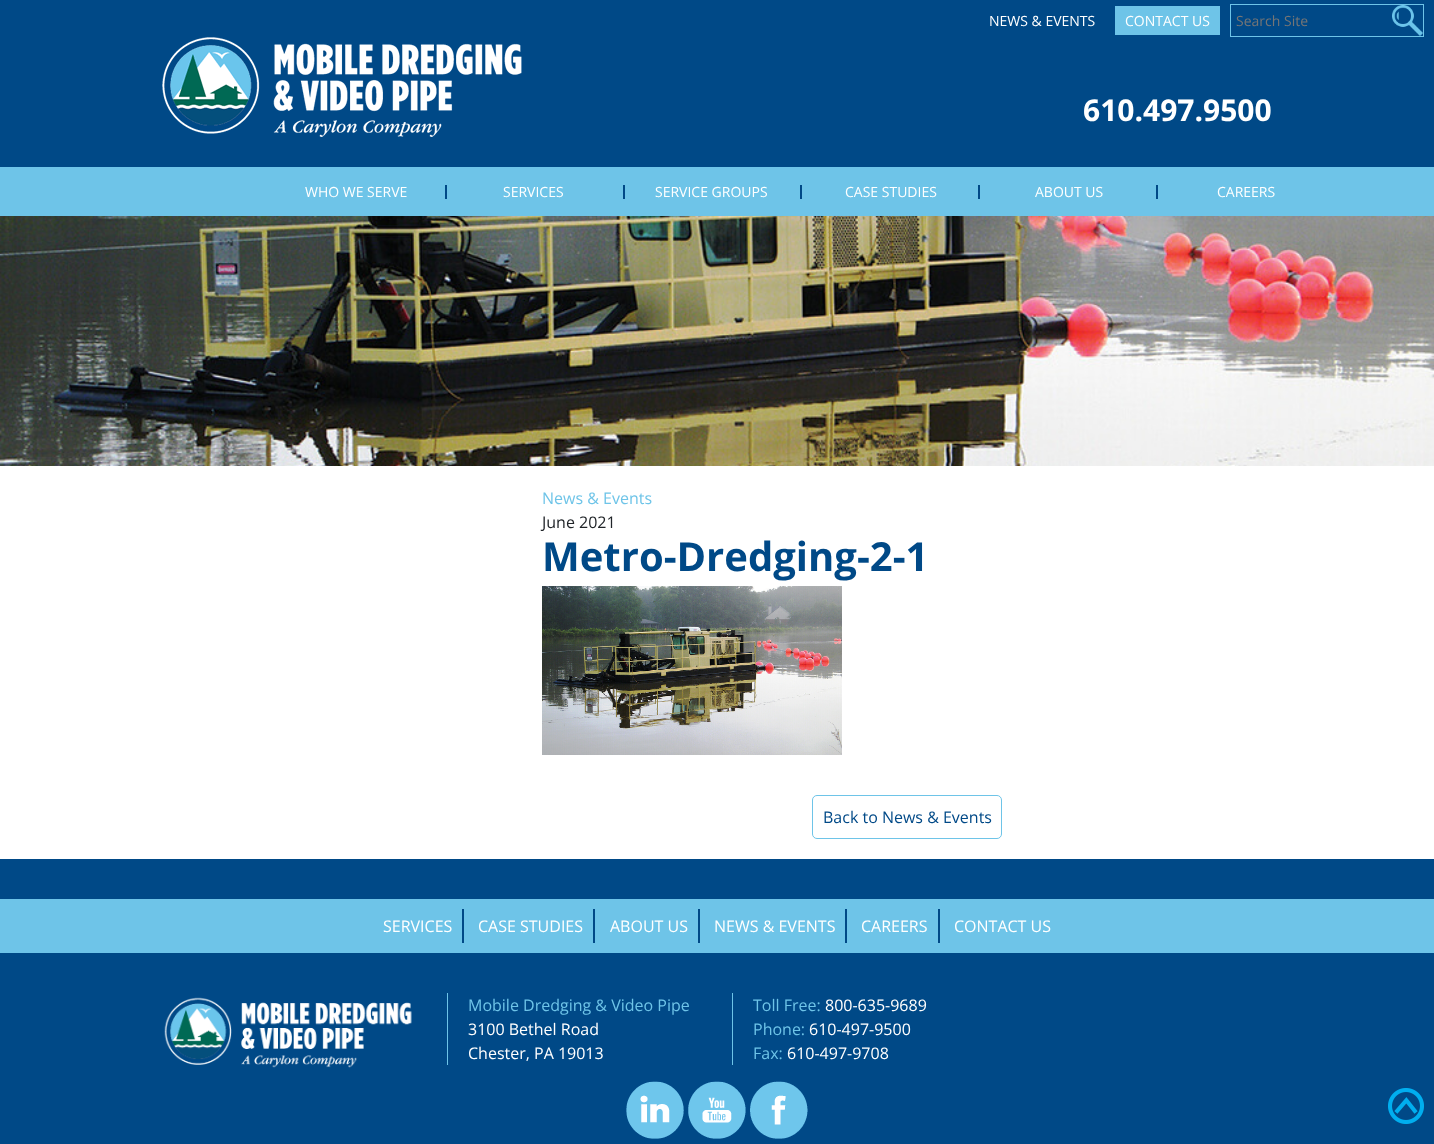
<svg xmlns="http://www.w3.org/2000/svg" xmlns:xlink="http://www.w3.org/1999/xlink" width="1434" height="1144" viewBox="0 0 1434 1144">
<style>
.cls-1{font:14px Open Sans;fill:#ffffff}
.cls-2{font:14px Open Sans;fill:#757575}
.cls-3{font:bold 30px Open Sans;fill:#ffffff}
.cls-4{font:16px Open Sans;fill:#6ec4e8}
.cls-5{font:16px Open Sans;fill:#212529}
.cls-6{font:bold 40px Open Sans;fill:#004987}
.cls-7{font:16px Open Sans;fill:#004987}
.cls-8{font:16px Open Sans;fill:#ffffff}
</style>
<rect width="100%" height="100%" fill="#ffffff"/>
<rect fill="#004987" x="0" y="0" width="1434" height="167"/>
<rect fill="#6ec4e8" x="1115" y="6" width="105" height="29"/>
<image xlink:href="image0.png" x="1392" y="5" width="31" height="31"/>
<rect fill="none" stroke="#6ec4e8" x="1230.5" y="4.5" width="193" height="32"/>
<image xlink:href="image1.png" x="162" y="37" width="360" height="100"/>
<rect fill="#6ec4e8" x="0" y="167" width="1434" height="49"/>
<rect fill="#004987" x="445" y="185" width="2" height="14"/>
<rect fill="#004987" x="623" y="185" width="2" height="14"/>
<rect fill="#004987" x="800" y="185" width="2" height="14"/>
<rect fill="#004987" x="978" y="185" width="2" height="14"/>
<rect fill="#004987" x="1156" y="185" width="2" height="14"/>
<image xlink:href="image2.png" x="0" y="216" width="1434" height="250"/>
<image xlink:href="image3.png" x="542" y="586" width="300" height="169"/>
<rect fill="none" stroke="#6ec4e8" x="812.5" y="795.5" width="189" height="43" rx="4.5"/>
<rect fill="#004987" x="0" y="859" width="1434" height="285"/>
<rect fill="#6ec4e8" x="0" y="899" width="1434" height="54"/>
<rect fill="#004987" x="462" y="909" width="2" height="34"/>
<rect fill="#004987" x="593" y="909" width="2" height="34"/>
<rect fill="#004987" x="698" y="909" width="2" height="34"/>
<rect fill="#004987" x="845" y="909" width="2" height="34"/>
<rect fill="#004987" x="938" y="909" width="2" height="34"/>
<image xlink:href="image4.png" x="164" y="997" width="248" height="71"/>
<rect fill="#6ec4e8" x="447" y="993" width="1" height="72"/>
<rect fill="#6ec4e8" x="732" y="993" width="1" height="72"/>
<image xlink:href="image5.png" x="626" y="1081" width="58" height="58"/>
<image xlink:href="image6.png" x="688" y="1081" width="58" height="58"/>
<image xlink:href="image7.png" x="750" y="1081" width="58" height="58"/>
<image xlink:href="image8.png" x="1388" y="1088" width="36" height="36"/>
<text class="cls-1" x="989" y="26">NEWS &amp; EVENTS</text>
<text class="cls-1" x="1125" y="26">CONTACT US</text>
<text class="cls-2" x="1236" y="26">Search Site</text>
<text class="cls-3" x="1083" y="121">610.497.9500</text>
<text class="cls-1" x="305" y="197">WHO WE SERVE</text>
<text class="cls-1" x="503" y="197">SERVICES</text>
<text class="cls-1" x="655" y="197">SERVICE GROUPS</text>
<text class="cls-1" x="845" y="197">CASE STUDIES</text>
<text class="cls-1" x="1035" y="197">ABOUT US</text>
<text class="cls-1" x="1217" y="197">CAREERS</text>
<text class="cls-4" x="542" y="504">News &amp; Events</text>
<text class="cls-5" x="542" y="528">June 2021</text>
<text class="cls-6" x="542" y="571">Metro-Dredging-2-1</text>
<text class="cls-7" x="823" y="823">Back to News &amp; Events</text>
<text class="cls-8" x="383" y="932">SERVICES</text>
<text class="cls-8" x="478" y="932">CASE STUDIES</text>
<text class="cls-8" x="610" y="932">ABOUT US</text>
<text class="cls-8" x="714" y="932">NEWS &amp; EVENTS</text>
<text class="cls-8" x="861" y="932">CAREERS</text>
<text class="cls-8" x="954" y="932">CONTACT US</text>
<text class="cls-4" x="468" y="1011">Mobile Dredging &amp; Video Pipe</text>
<text class="cls-8"><tspan x="468" y="1035">3100 Bethel Road</tspan><tspan x="468" y="1059">Chester, PA 19013</tspan></text>
<text class="cls-4" x="753" y="1011">Toll Free:</text>
<text class="cls-8" x="825" y="1011">800-635-9689</text>
<text class="cls-4" x="753" y="1035">Phone:</text>
<text class="cls-8" x="809" y="1035">610-497-9500</text>
<text class="cls-4" x="753" y="1059">Fax:</text>
<text class="cls-8" x="787" y="1059">610-497-9708</text>
</svg>
